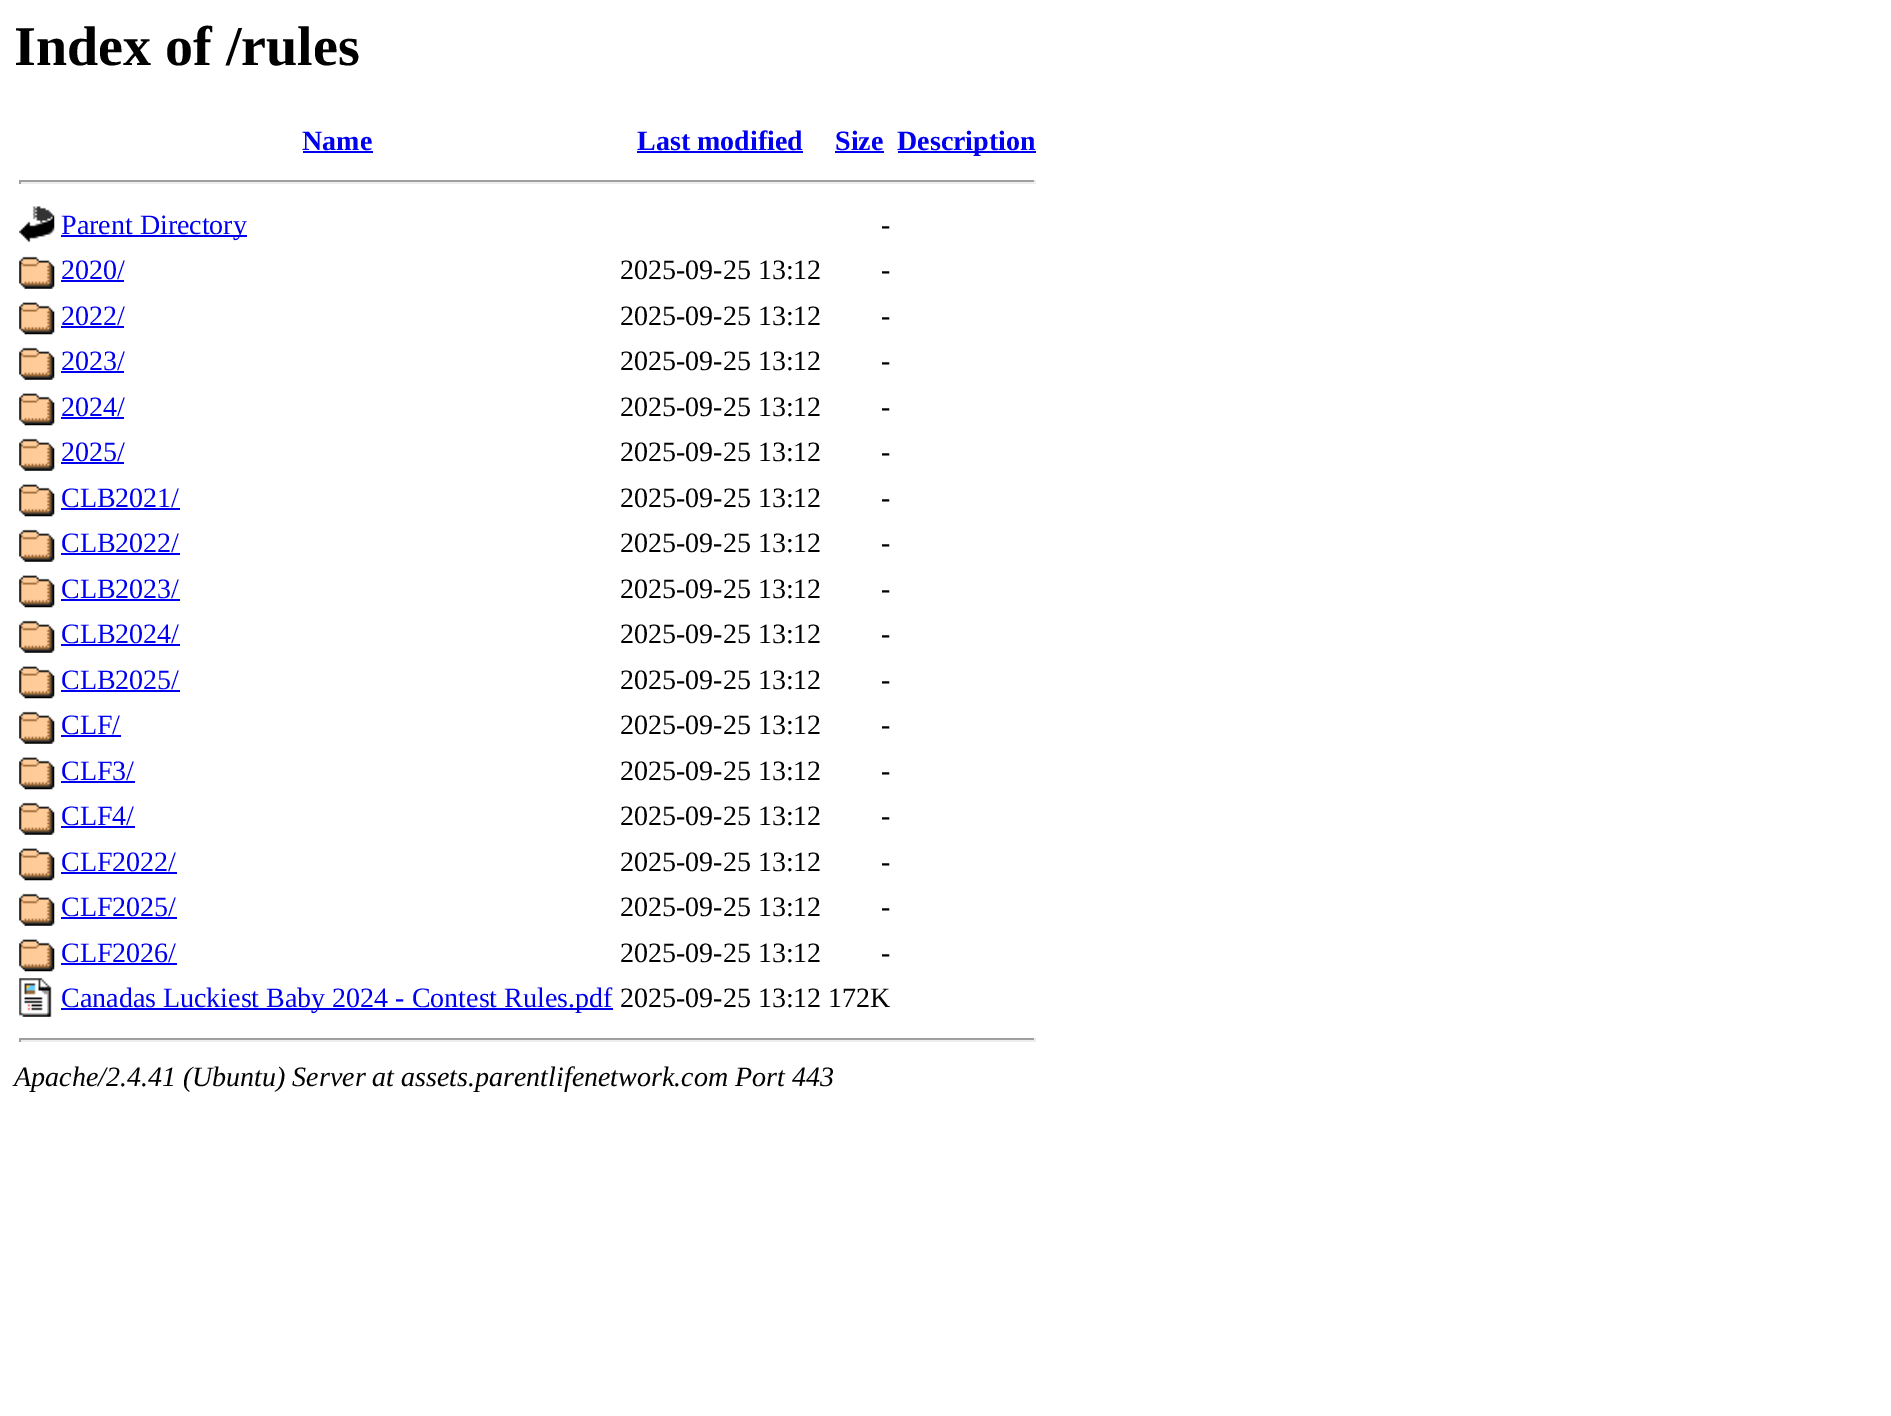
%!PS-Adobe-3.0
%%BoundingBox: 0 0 1891 1416
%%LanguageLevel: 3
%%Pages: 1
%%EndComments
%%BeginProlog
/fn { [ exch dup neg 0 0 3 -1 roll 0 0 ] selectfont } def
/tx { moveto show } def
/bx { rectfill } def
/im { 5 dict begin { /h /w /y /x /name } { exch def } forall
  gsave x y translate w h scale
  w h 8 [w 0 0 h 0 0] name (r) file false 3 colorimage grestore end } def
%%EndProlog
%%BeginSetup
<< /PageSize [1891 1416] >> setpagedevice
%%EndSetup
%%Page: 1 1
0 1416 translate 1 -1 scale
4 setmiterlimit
1 setgray
0 0 1891 1416 bx
/LiberationSerif-Bold 56 fn
0 setgray
(Index of /rules) 14 65 tx
/LiberationSerif-Bold 28 fn
0 0 0.933 setrgbcolor
(Name) 302 150 tx
303 151 70 2 bx
(Last modified) 637 150 tx
637 151 166 2 bx
(Size) 835 150 tx
835 151 49 2 bx
898 151 138 2 bx
(Description) 897 150 tx
0.624 setgray
19 180 1017 2 bx
0.933 setgray
1034 180 2 4 bx
19 182 1017 2 bx
0.624 setgray
19 180 2 4 bx
(image0.raw) 19 206 36 36 im
0 0 0.933 setrgbcolor
61 235 186 2 bx
/LiberationSerif-Regular 28 fn
(Parent Directory) 61 234 tx
0 setgray
(-) 881 234 tx
(image1.raw) 19 256 36 33 im
0 0 0.933 setrgbcolor
(2020/) 61 279 tx
61 280 63 2 bx
0 setgray
(2025-09-25 13:12) 620 279 tx
(-) 881 279 tx
(image2.raw) 19 302 36 33 im
0 0 0.933 setrgbcolor
(2022/) 61 325 tx
61 326 63 2 bx
0 setgray
(2025-09-25 13:12) 620 325 tx
(-) 881 325 tx
(image1.raw) 19 347 36 33 im
0 0 0.933 setrgbcolor
(2023/) 61 370 tx
61 371 63 2 bx
0 setgray
(2025-09-25 13:12) 620 370 tx
(-) 881 370 tx
(image2.raw) 19 393 36 33 im
0 0 0.933 setrgbcolor
(2024/) 61 416 tx
61 417 63 2 bx
0 setgray
(2025-09-25 13:12) 620 416 tx
(-) 881 416 tx
(image1.raw) 19 438 36 33 im
0 0 0.933 setrgbcolor
(2025/) 61 461 tx
61 462 63 2 bx
0 setgray
(2025-09-25 13:12) 620 461 tx
(-) 881 461 tx
(image2.raw) 19 484 36 33 im
0 0 0.933 setrgbcolor
(CLB2021/) 61 507 tx
61 508 119 2 bx
0 setgray
(2025-09-25 13:12) 620 507 tx
(-) 881 507 tx
(image1.raw) 19 529 36 33 im
0 0 0.933 setrgbcolor
(CLB2022/) 61 552 tx
61 553 119 2 bx
0 setgray
(2025-09-25 13:12) 620 552 tx
(-) 881 552 tx
(image2.raw) 19 575 36 33 im
0 0 0.933 setrgbcolor
(CLB2023/) 61 598 tx
61 599 119 2 bx
0 setgray
(2025-09-25 13:12) 620 598 tx
(-) 881 598 tx
(image1.raw) 19 620 36 33 im
0 0 0.933 setrgbcolor
(CLB2024/) 61 643 tx
61 644 119 2 bx
0 setgray
(2025-09-25 13:12) 620 643 tx
(-) 881 643 tx
(image2.raw) 19 666 36 33 im
0 0 0.933 setrgbcolor
(CLB2025/) 61 689 tx
61 690 119 2 bx
0 setgray
(2025-09-25 13:12) 620 689 tx
(-) 881 689 tx
(image1.raw) 19 711 36 33 im
0 0 0.933 setrgbcolor
(CLF/) 61 734 tx
61 735 60 2 bx
0 setgray
(2025-09-25 13:12) 620 734 tx
(-) 881 734 tx
(image2.raw) 19 757 36 33 im
0 0 0.933 setrgbcolor
(CLF3/) 61 780 tx
61 781 74 2 bx
0 setgray
(2025-09-25 13:12) 620 780 tx
(-) 881 780 tx
(image1.raw) 19 802 36 33 im
0 0 0.933 setrgbcolor
(CLF4/) 61 825 tx
61 826 74 2 bx
0 setgray
(2025-09-25 13:12) 620 825 tx
(-) 881 825 tx
(image2.raw) 19 848 36 33 im
0 0 0.933 setrgbcolor
(CLF2022/) 61 871 tx
61 872 116 2 bx
0 setgray
(2025-09-25 13:12) 620 871 tx
(-) 881 871 tx
(image1.raw) 19 893 36 33 im
0 0 0.933 setrgbcolor
(CLF2025/) 61 916 tx
61 917 116 2 bx
0 setgray
(2025-09-25 13:12) 620 916 tx
(-) 881 916 tx
(image2.raw) 19 939 36 33 im
0 0 0.933 setrgbcolor
(CLF2026/) 61 962 tx
61 963 116 2 bx
0 setgray
(2025-09-25 13:12) 620 962 tx
(-) 881 962 tx
(image3.raw) 19 978 33 39 im
0 0 0.933 setrgbcolor
61 1008 552 2 bx
(Canadas Luckiest Baby 2024 - Contest Rules.pdf) 61 1007 tx
0 setgray
(2025-09-25 13:12 172K) 620 1007 tx
0.624 setgray
19 1038 1017 2 bx
0.933 setgray
1034 1038 2 4 bx
19 1040 1017 2 bx
0.624 setgray
19 1038 2 4 bx
/LiberationSerif-Italic 28 fn
0 setgray
(Apache/2.4.41 \(Ubuntu\) Server at assets.parentlifenetwork.com Port 443) 14 1086 tx
showpage
%%EOF
